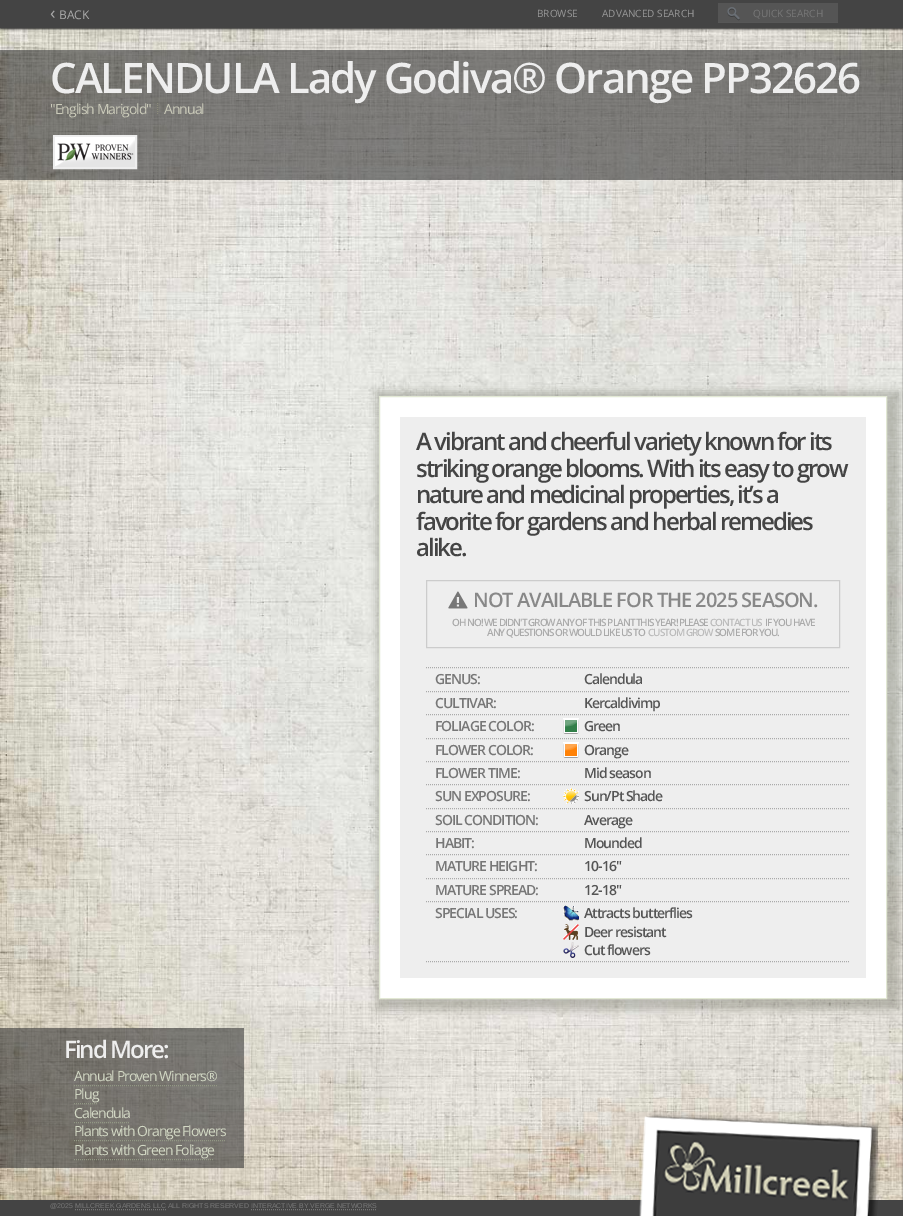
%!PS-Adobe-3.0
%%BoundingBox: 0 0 903 1216
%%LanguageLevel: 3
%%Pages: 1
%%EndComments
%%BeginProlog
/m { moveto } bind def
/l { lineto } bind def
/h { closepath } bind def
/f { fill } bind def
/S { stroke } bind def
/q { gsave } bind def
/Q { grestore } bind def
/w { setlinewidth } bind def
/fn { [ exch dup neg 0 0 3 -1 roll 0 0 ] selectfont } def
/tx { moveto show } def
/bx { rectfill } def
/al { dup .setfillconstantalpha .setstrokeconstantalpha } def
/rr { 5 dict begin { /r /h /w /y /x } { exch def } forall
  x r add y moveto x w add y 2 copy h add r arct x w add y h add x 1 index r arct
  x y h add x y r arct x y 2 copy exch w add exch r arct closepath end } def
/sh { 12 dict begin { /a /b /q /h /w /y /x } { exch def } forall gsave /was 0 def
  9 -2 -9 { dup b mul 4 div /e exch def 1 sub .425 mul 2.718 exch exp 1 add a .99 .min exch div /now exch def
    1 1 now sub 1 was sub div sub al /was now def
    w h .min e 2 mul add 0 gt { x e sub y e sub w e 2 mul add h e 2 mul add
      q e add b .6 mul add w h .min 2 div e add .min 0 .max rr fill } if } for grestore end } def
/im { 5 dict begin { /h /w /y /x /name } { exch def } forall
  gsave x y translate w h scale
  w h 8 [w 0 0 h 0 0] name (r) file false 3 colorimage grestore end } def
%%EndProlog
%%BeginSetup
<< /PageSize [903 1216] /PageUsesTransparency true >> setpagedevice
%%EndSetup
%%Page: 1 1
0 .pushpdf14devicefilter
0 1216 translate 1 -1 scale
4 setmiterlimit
1 setgray
0 0 903 1216 bx
(image1.raw) 0 28 903 1172 im
0.133 setgray
0 1 903 28 0 1 1 sh
0.267 setgray
0 0 903 28 bx
/OpenSans-Regular 18 fn
0.667 setgray
(‹) 50 19 tx
/OpenSans-Regular 12 fn
(BACK) 59 19 tx
/OpenSans-Regular 10 fn
0.6 setgray
(BROWSE) 537 17 tx
(ADVANCED SEARCH) 602 17 tx
0.341 setgray
718 22 120 1 bx
0.333 setgray
718 3 120 19 bx
(image0.raw) 727 7 13 14 im
0.467 setgray
(QUICK SEARCH) 753 17 tx
0.6 al
0.216 setgray
0 50 903 130 bx
1 al
0.541 0.541 0.475 setrgbcolor
[1 1] 0 setdash
157.5 103 m 157.5 115 l S
/OpenSans-SemiBold 42 fn
0.933 setgray
50 93 m -2 0 (CALENDULA Lady Godiva® Orange PP32626) ashow
/OpenSans-Regular 14 fn
0.792 0.792 0.725 setrgbcolor
50 114 m -1 0 ("English Marigold") ashow
164 114 m -1 0 (Annual) ashow
0.933 setgray
2 w
[] 0 setdash
54 136 82 32 rectstroke
(image2.raw) 55 137 80 30 im
0.306 0.314 0.255 setrgbcolor
376 391 524 619 0 4 0.3 sh
1 setgray
379.5 396.5 m 886.5 396.5 l 886.5 998.5 l 379.5 998.5 l h q f Q
0.886 0.91 0.831 setrgbcolor
1 w
S
0.933 setgray
400 417 466 561 bx
/OpenSans-SemiBold 24 fn
0.267 setgray
416 450 m -2 0 (A vibrant and cheerful variety known for its) ashow
416 477 m -2 0 (striking orange blooms. With its easy to grow) ashow
416 503 m -2 0 (nature and medicinal properties, it’s a) ashow
416 530 m -2 0 (favorite for gardens and herbal remedies) ashow
416 556 m -2 0 (alike.) ashow
0.8 setgray
426.5 580.5 413 67 rectstroke
(image3.raw) 448 591 20 18 im
/OpenSans-SemiBold 20 fn
0.533 setgray
473 607 m -1 0 (NOT AVAILABLE FOR THE 2025 SEASON.) ashow
/OpenSans-SemiBold 10 fn
0.667 setgray
452 626 m -1 0 (OH NO! WE DIDN'T GROW ANY OF THIS PLANT THIS YEAR! PLEASE) ashow
0.733 setgray
710 626 m -1 0 (CONTACT US) ashow
0.667 setgray
765 626 m -1 0 (IF YOU HAVE) ashow
487 636 m -1 0 (ANY QUESTIONS OR WOULD LIKE US TO) ashow
0.733 setgray
648 636 m -1 0 (CUSTOM GROW) ashow
0.667 setgray
715 636 m -1 0 (SOME FOR YOU.) ashow
[1 1] 0 setdash
426 667.5 m 850 667.5 l S
426 691.5 m 850 691.5 l S
/OpenSans-SemiBold 14 fn
0.467 setgray
435 684 m -1 0 (GENUS:) ashow
0.333 setgray
584 684 m -1 0 (Calendula) ashow
0.667 setgray
426 714.5 m 850 714.5 l S
0.467 setgray
435 708 m -1 0 (CULTIVAR:) ashow
0.333 setgray
584 708 m -1 0 (Kercaldivimp) ashow
0.667 setgray
426 738.5 m 850 738.5 l S
0.467 setgray
435 731 m -1 0 (FOLIAGE COLOR:) ashow
(image4.raw) 563 718 16 16 im
0.333 setgray
584 731 m -1 0 (Green) ashow
0.667 setgray
426 761.5 m 850 761.5 l S
0.467 setgray
435 755 m -1 0 (FLOWER COLOR:) ashow
(image5.raw) 563 742 16 16 im
0.333 setgray
584 755 m -1 0 (Orange) ashow
0.667 setgray
426 784.5 m 850 784.5 l S
0.467 setgray
435 778 m -1 0 (FLOWER TIME:) ashow
0.333 setgray
584 778 m -1 0 (Mid season) ashow
0.667 setgray
426 808.5 m 850 808.5 l S
0.467 setgray
435 801 m -1 0 (SUN EXPOSURE:) ashow
(image6.raw) 563 788 16 16 im
0.333 setgray
584 801 m -1 0 (Sun/Pt Shade) ashow
0.667 setgray
426 831.5 m 850 831.5 l S
0.467 setgray
435 825 m -1 0 (SOIL CONDITION:) ashow
0.333 setgray
584 825 m -1 0 (Average) ashow
0.667 setgray
426 854.5 m 850 854.5 l S
0.467 setgray
435 848 m -1 0 (HABIT:) ashow
0.333 setgray
584 848 m -1 0 (Mounded) ashow
0.667 setgray
426 878.5 m 850 878.5 l S
0.467 setgray
435 871 m -1 0 (MATURE HEIGHT:) ashow
0.333 setgray
584 871 m -1 0 (10-16") ashow
0.667 setgray
426 901.5 m 850 901.5 l S
0.467 setgray
435 895 m -1 0 (MATURE SPREAD:) ashow
0.333 setgray
584 895 m -1 0 (12-18") ashow
0.667 setgray
426 961.5 m 850 961.5 l S
0.467 setgray
435 918 m -1 0 (SPECIAL USES:) ashow
(image7.raw) 563 905 16 16 im
0.333 setgray
584 918 m -1 0 (Attracts butterflies) ashow
(image8.raw) 563 924 16 16 im
584 937 m -1 0 (Deer resistant) ashow
(image9.raw) 563 942 16 16 im
584 955 m -1 0 (Cut flowers) ashow
0.6 al
0.216 setgray
0 1028 244 140 bx
/OpenSans-SemiBold 24 fn
1 al
0.933 setgray
64 1058 m -2 0 (Find More:) ashow
/OpenSans-Regular 14 fn
0.824 0.847 0.769 setrgbcolor
74 1081 m -1 0 (Annual Proven Winners®) ashow
0.573 0.596 0.518 setrgbcolor
74 1085.5 m 217 1085.5 l S
0.824 0.847 0.769 setrgbcolor
74 1099 m -1 0 (Plug) ashow
0.573 0.596 0.518 setrgbcolor
74 1103.5 m 98 1103.5 l S
0.824 0.847 0.769 setrgbcolor
74 1118 m -1 0 (Calendula) ashow
0.573 0.596 0.518 setrgbcolor
74 1122.5 m 130 1122.5 l S
0.824 0.847 0.769 setrgbcolor
74 1136 m -1 0 (Plants with Orange Flowers) ashow
0.573 0.596 0.518 setrgbcolor
74 1140.5 m 226 1140.5 l S
0.824 0.847 0.769 setrgbcolor
74 1155 m -1 0 (Plants with Green Foliage) ashow
0.573 0.596 0.518 setrgbcolor
74 1159.5 m 214 1159.5 l S
0.267 setgray
0 1200 903 16 bx
(image10.raw) 639 1112 239 104 im
/LiberationSans-Regular 7 fn
0.467 setgray
(@2025 MILLCREEK GARDENS LLC ALL RIGHTS RESERVED INTERACTIVE BY VERGE NETWORKS) 50 1208 tx
75 1209.5 m 166 1209.5 l S
251 1209.5 m 377 1209.5 l S
.poppdf14devicefilter showpage
%%EOF
